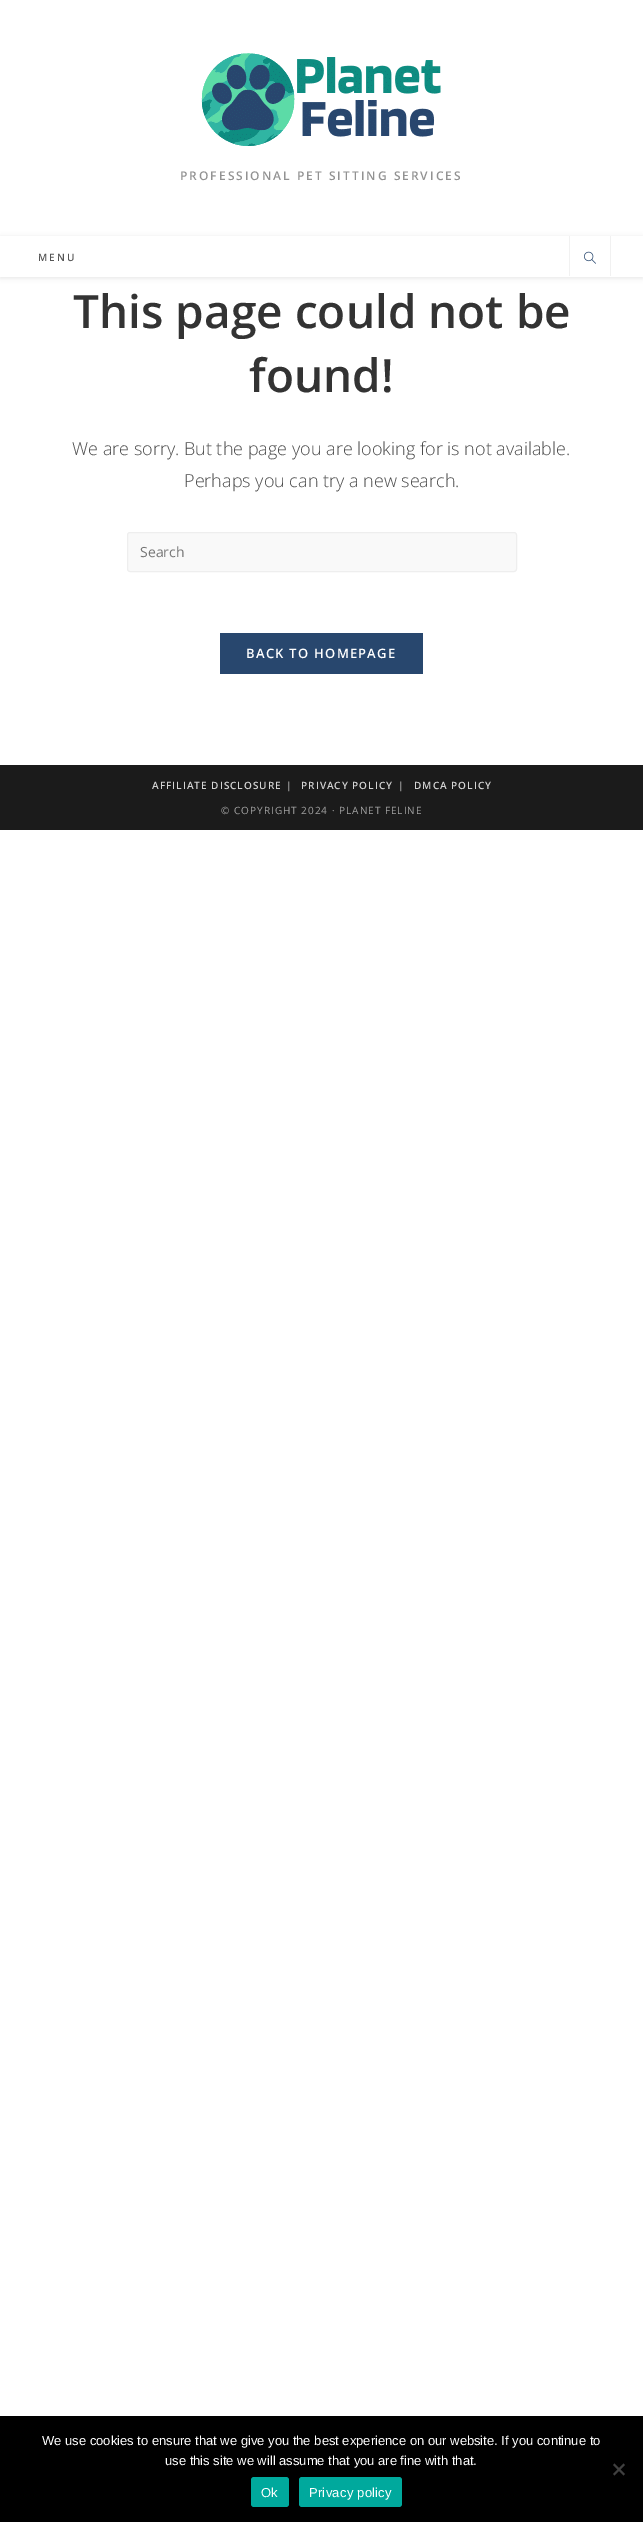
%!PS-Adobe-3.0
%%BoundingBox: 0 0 643 2522
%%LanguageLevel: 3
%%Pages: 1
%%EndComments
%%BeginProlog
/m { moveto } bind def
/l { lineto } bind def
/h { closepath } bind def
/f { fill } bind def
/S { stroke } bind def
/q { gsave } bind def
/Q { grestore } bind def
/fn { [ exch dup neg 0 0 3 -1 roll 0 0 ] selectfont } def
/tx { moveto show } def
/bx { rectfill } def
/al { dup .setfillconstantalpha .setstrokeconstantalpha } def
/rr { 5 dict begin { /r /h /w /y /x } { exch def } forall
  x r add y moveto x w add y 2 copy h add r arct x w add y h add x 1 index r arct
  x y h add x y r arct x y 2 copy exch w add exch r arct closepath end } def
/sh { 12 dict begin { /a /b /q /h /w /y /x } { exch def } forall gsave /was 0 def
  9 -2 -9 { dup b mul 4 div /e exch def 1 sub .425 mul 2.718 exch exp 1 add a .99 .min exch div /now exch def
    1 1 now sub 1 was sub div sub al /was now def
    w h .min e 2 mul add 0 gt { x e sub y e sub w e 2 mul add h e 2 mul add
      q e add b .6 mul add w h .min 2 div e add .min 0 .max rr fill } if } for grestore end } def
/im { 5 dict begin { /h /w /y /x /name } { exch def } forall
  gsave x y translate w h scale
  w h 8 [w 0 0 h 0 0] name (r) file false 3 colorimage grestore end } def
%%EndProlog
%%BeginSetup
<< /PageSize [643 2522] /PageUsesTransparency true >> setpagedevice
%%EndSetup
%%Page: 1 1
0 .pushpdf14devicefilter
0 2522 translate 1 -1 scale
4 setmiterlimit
1 setgray
0 0 643 2522 bx
(image0.raw) 201 53 241 93 im
/OpenSans-SemiBold 12 fn
0.573 setgray
180 180 m 2 0 (PROFESSIONAL PET SITTING SERVICES) ashow
q
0 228 m 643 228 l 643 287 l 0 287 l h 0 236 m 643 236 l 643 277 l 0 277 l h eoclip newpath
0 setgray
0 237 643 41 0 2.5 0.1 sh
Q
/OpenSans-SemiBold 10 fn
0.333 setgray
38 261 m 2 0 (MENU) ashow
0.945 setgray
610 236 1 40 bx
569 236 1 40 bx
(image1.raw) 584 251 12 13 im
/OpenSans-SemiBold 46 fn
0.2 setgray
(This page could not be) 73 328 tx
(found!) 249 392 tx
/OpenSans-Light 18 fn
0.298 setgray
(We are sorry. But the page you are looking for is not available.) 72 455 tx
(Perhaps you can try a new search.) 184 487 tx
0.976 setgray
127.5 532.5 389 39 2.5 rr q f Q
0.933 setgray
S
/OpenSans-Regular 14 fn
0.459 setgray
(Search) 140 557 tx
0.157 0.278 0.431 setrgbcolor
220 633 203 41 bx
/OpenSans-SemiBold 13 fn
1 setgray
246 658 m 1.25 0 (BACK TO HOMEPAGE) ashow
0.106 setgray
0 765 643 65 bx
/OpenSans-SemiBold 10 fn
0.827 setgray
152 789 m 1 0 (AFFILIATE DISCLOSURE) ashow
0.639 setgray
286 789 m 1 0 (|) ashow
0.827 setgray
301 789 m 1 0 (PRIVACY POLICY) ashow
0.639 setgray
398 789 m 1 0 (|) ashow
0.827 setgray
414 789 m 1 0 (DMCA POLICY) ashow
/OpenSans-Regular 10 fn
0.639 setgray
221 814 m 1 0 (© COPYRIGHT 2024 · PLANET FELINE) ashow
0 setgray
0 2416 643 106 bx
/LiberationSans-Regular 13 fn
1 setgray
(We use cookies to ensure that we give you the best experience on our website. If you continue to) 42 2445 tx
(use this site we will assume that you are fine with that.) 165 2465 tx
0.251 setgray
623.5 2463.5 m 625 2465 l 614.5 2475.5 l 613 2474 l h f
613 2465 m 614.5 2463.5 l 625 2474 l 623.5 2475.5 l h f
0 0.663 0.616 setrgbcolor
251 2477 38 30 3 rr f
1 setgray
261 2497 m 0.25 0 (Ok) ashow
0 0.663 0.616 setrgbcolor
299 2477 103 30 3 rr f
1 setgray
309 2497 m 0.25 0 (Privacy policy) ashow
.poppdf14devicefilter showpage
%%EOF
